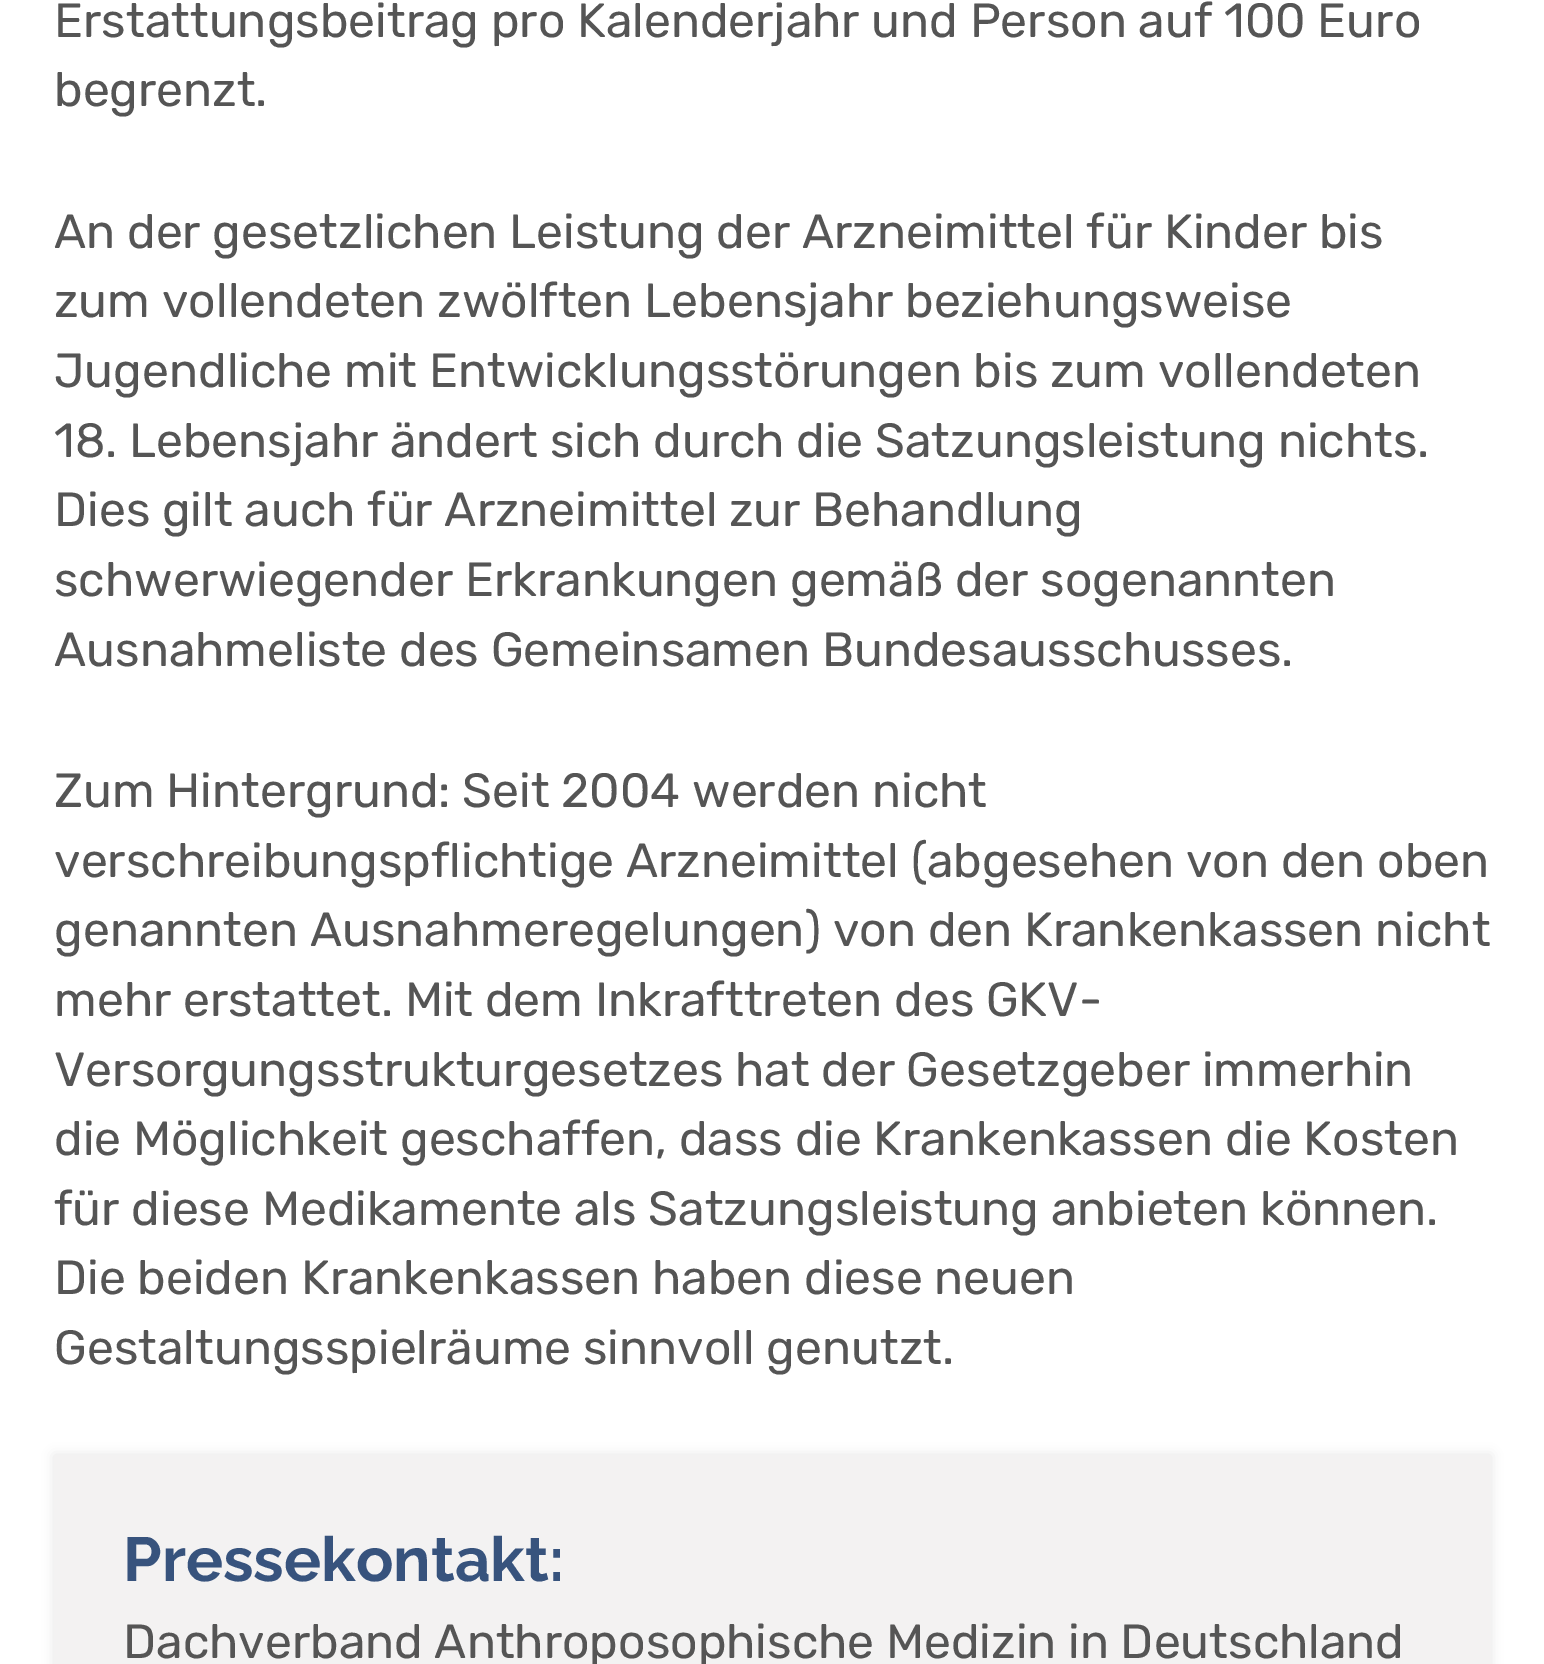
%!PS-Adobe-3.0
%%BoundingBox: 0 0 1544 1664
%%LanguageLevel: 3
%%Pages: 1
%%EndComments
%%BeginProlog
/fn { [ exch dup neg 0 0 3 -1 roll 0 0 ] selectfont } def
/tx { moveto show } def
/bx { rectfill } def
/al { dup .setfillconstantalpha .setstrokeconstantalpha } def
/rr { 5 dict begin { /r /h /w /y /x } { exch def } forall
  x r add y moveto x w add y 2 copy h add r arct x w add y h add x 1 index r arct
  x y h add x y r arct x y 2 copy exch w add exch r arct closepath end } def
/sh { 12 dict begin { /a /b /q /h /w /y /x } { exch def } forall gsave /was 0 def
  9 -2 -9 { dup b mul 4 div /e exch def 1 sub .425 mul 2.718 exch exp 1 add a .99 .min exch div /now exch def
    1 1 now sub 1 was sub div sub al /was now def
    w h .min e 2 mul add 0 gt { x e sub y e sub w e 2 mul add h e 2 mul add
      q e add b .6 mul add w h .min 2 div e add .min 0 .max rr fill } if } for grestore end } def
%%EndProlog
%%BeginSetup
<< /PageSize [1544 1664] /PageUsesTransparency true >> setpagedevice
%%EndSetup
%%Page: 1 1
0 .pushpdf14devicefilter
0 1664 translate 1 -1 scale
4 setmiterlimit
1 setgray
0 0 1544 1664 bx
/Rubik-Regular 48 fn
0.333 setgray
(Erstattungsbeitrag pro Kalenderjahr und Person auf 100 Euro) 54 37 tx
(begrenzt.) 54 106 tx
(An der gesetzlichen Leistung der Arzneimittel für Kinder bis) 54 248 tx
(zum vollendeten zwölften Lebensjahr beziehungsweise) 54 317 tx
(Jugendliche mit Entwicklungsstörungen bis zum vollendeten) 54 387 tx
(18. Lebensjahr ändert sich durch die Satzungsleistung nichts.) 54 457 tx
(Dies gilt auch für Arzneimittel zur Behandlung) 54 526 tx
(schwerwiegender Erkrankungen gemäß der sogenannten) 54 596 tx
(Ausnahmeliste des Gemeinsamen Bundesausschusses.) 54 666 tx
(Zum Hintergrund: Seit 2004 werden nicht) 54 807 tx
(verschreibungspflichtige Arzneimittel \(abgesehen von den oben) 54 877 tx
(genannten Ausnahmeregelungen\) von den Krankenkassen nicht) 54 946 tx
(mehr erstattet. Mit dem Inkrafttreten des GKV-) 54 1016 tx
(Versorgungsstrukturgesetzes hat der Gesetzgeber immerhin) 54 1086 tx
(die Möglichkeit geschaffen, dass die Krankenkassen die Kosten) 54 1155 tx
(für diese Medikamente als Satzungsleistung anbieten können.) 54 1225 tx
(Die beiden Krankenkassen haben diese neuen) 54 1294 tx
(Gestaltungsspielräume sinnvoll genutzt.) 54 1364 tx
0.902 setgray
54 1455 1437 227 0 6 1 sh
0.953 0.949 0.949 setrgbcolor
54 1455 1437 209 bx
/Raleway-Bold 62 fn
0.216 0.325 0.49 setrgbcolor
(Pressekontakt:) 123 1581 tx
/Rubik-Regular 48 fn
0.333 setgray
(Dachverband Anthroposophische Medizin in Deutschland) 123 1658 tx
.poppdf14devicefilter showpage
%%EOF
